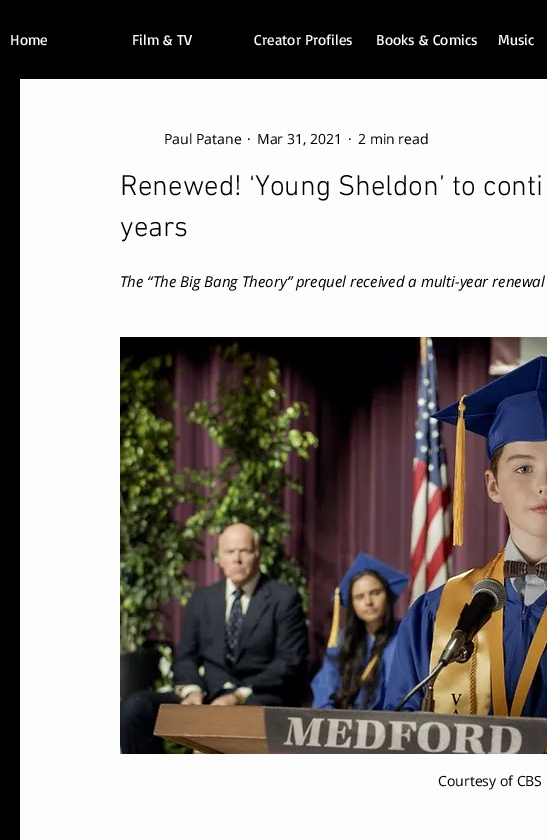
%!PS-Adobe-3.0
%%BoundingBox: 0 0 547 840
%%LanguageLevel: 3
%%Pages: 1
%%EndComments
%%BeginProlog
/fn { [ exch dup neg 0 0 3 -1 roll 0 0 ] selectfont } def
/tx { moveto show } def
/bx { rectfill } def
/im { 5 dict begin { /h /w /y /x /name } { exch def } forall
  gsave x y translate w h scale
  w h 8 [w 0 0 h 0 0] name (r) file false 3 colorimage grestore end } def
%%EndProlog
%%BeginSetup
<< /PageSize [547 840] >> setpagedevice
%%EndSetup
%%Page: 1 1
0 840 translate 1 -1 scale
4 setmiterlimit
0 setgray
0 0 547 840 bx
/Basic-Regular 15 fn
0.992 setgray
(Home) 10 45 tx
(Film & TV) 132 45 tx
(Creator Profiles) 254 45 tx
(Books & Comics) 376 45 tx
(Music) 498 45 tx
20 79 527 761 bx
/OpenSans-Regular 14 fn
0 setgray
(Paul Patane) 164 144 tx
(·) 247 144 tx
(Mar 31, 2021) 257 144 tx
(·) 348 144 tx
(2 min read) 358 144 tx
/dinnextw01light-Light 29 fn
(Renewed! ‘Young Sheldon’ to conti) 120 195 tx
(years) 120 236 tx
/OpenSans-Italic 15 fn
(The “The Big Bang Theory” prequel received a multi-year renewal) 120 287 tx
(image0.raw) 120 337 427 417 im
/OpenSans-Regular 14 fn
(Courtesy of CBS) 438 786 tx
showpage
%%EOF
